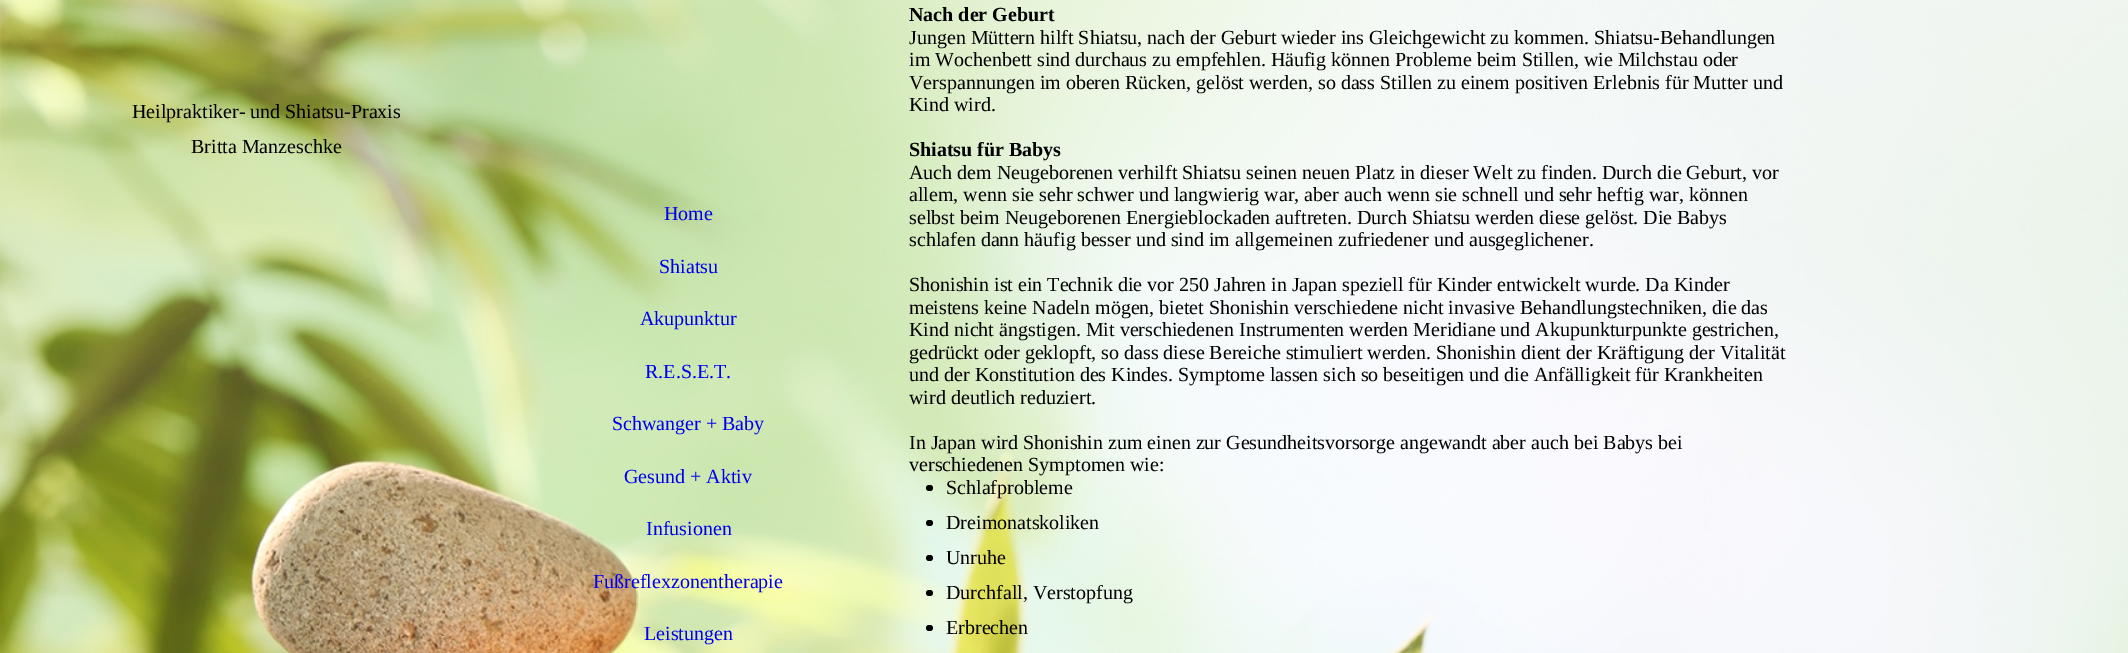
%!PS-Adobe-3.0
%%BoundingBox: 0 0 2128 653
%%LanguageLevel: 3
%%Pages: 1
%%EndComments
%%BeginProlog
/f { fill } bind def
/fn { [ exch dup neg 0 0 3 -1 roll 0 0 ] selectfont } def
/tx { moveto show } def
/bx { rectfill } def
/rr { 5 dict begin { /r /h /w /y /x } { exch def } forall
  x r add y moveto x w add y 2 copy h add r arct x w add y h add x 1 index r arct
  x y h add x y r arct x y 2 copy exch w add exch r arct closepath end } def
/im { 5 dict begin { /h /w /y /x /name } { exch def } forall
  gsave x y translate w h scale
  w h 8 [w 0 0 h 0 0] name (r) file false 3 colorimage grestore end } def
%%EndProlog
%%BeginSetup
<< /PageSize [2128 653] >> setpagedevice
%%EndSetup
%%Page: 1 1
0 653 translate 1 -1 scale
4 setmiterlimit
1 setgray
0 0 2128 653 bx
(image0.raw) 0 0 2128 653 im
/LiberationSerif-Regular 20 fn
0 setgray
(Heilpraktiker- und Shiatsu-Praxis) 132 118 tx
(Britta Manzeschke) 191 153 tx
0 0 0.933 setrgbcolor
(Home) 664 220 tx
(Shiatsu) 659 273 tx
(Akupunktur) 640 325 tx
(R.E.S.E.T.) 645 378 tx
(Schwanger + Baby) 612 430 tx
(Gesund + Aktiv) 624 483 tx
(Infusionen) 646 535 tx
(Fußreflexzonentherapie) 593 588 tx
(Leistungen) 644 640 tx
/LiberationSerif-Bold 20 fn
0 setgray
(Nach der Geburt) 909 21 tx
/LiberationSerif-Regular 20 fn
(Jungen Müttern hilft Shiatsu, nach der Geburt wieder ins Gleichgewicht zu kommen. Shiatsu-Behandlungen) 909 44 tx
(im Wochenbett sind durchaus zu empfehlen. Häufig können Probleme beim Stillen, wie Milchstau oder) 909 66 tx
(Verspannungen im oberen Rücken, gelöst werden, so dass Stillen zu einem positiven Erlebnis für Mutter und) 909 89 tx
(Kind wird.) 909 111 tx
/LiberationSerif-Bold 20 fn
(Shiatsu für Babys) 909 156 tx
/LiberationSerif-Regular 20 fn
(Auch dem Neugeborenen verhilft Shiatsu seinen neuen Platz in dieser Welt zu finden. Durch die Geburt, vor) 909 179 tx
(allem, wenn sie sehr schwer und langwierig war, aber auch wenn sie schnell und sehr heftig war, können) 909 201 tx
(selbst beim Neugeborenen Energieblockaden auftreten. Durch Shiatsu werden diese gelöst. Die Babys) 909 224 tx
(schlafen dann häufig besser und sind im allgemeinen zufriedener und ausgeglichener.) 909 246 tx
(Shonishin ist ein Technik die vor 250 Jahren in Japan speziell für Kinder entwickelt wurde. Da Kinder) 909 291 tx
(meistens keine Nadeln mögen, bietet Shonishin verschiedene nicht invasive Behandlungstechniken, die das) 909 314 tx
(Kind nicht ängstigen. Mit verschiedenen Instrumenten werden Meridiane und Akupunkturpunkte gestrichen,) 909 336 tx
(gedrückt oder geklopft, so dass diese Bereiche stimuliert werden. Shonishin dient der Kräftigung der Vitalität) 909 359 tx
(und der Konstitution des Kindes. Symptome lassen sich so beseitigen und die Anfälligkeit für Krankheiten) 909 381 tx
(wird deutlich reduziert.) 909 404 tx
(In Japan wird Shonishin zum einen zur Gesundheitsvorsorge angewandt aber auch bei Babys bei) 909 449 tx
(verschiedenen Symptomen wie:) 909 471 tx
926 485 7 6 3 rr f
(Schlafprobleme) 946 494 tx
926 520 7 6 3 rr f
(Dreimonatskoliken) 946 529 tx
926 555 7 6 3 rr f
(Unruhe) 946 564 tx
926 590 7 6 3 rr f
(Durchfall, Verstopfung) 946 599 tx
926 625 7 6 3 rr f
(Erbrechen) 946 634 tx
showpage
%%EOF
